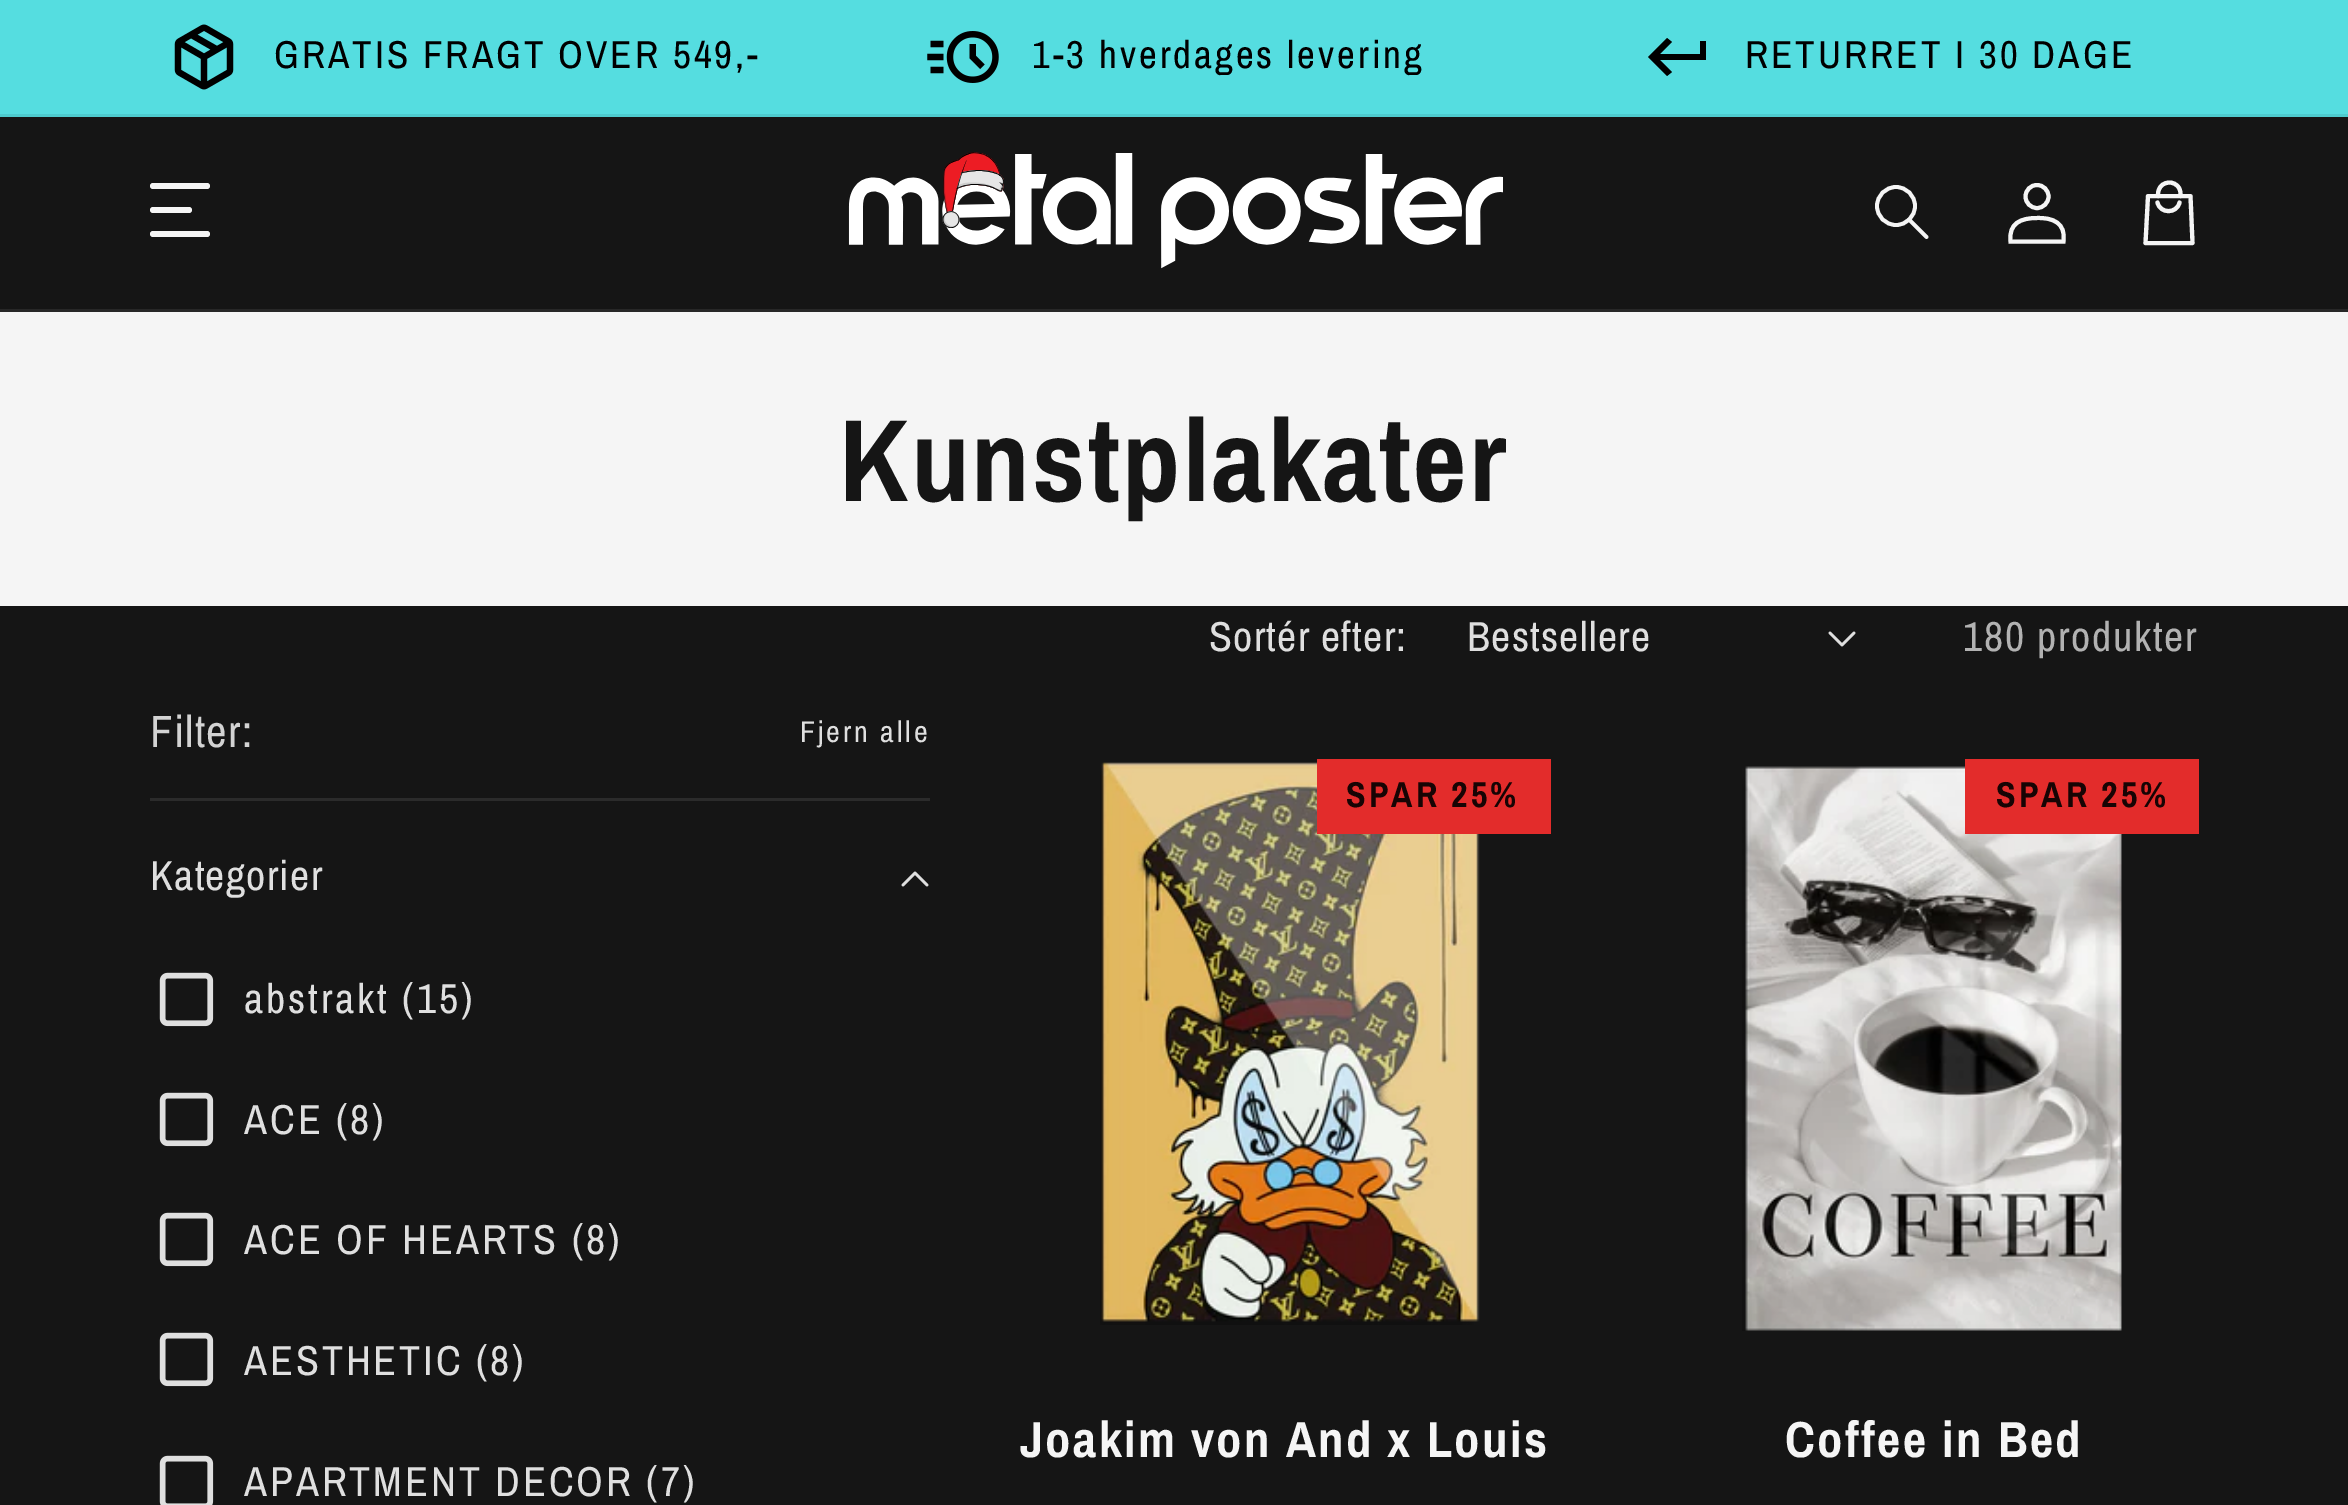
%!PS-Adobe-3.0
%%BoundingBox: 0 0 2348 1505
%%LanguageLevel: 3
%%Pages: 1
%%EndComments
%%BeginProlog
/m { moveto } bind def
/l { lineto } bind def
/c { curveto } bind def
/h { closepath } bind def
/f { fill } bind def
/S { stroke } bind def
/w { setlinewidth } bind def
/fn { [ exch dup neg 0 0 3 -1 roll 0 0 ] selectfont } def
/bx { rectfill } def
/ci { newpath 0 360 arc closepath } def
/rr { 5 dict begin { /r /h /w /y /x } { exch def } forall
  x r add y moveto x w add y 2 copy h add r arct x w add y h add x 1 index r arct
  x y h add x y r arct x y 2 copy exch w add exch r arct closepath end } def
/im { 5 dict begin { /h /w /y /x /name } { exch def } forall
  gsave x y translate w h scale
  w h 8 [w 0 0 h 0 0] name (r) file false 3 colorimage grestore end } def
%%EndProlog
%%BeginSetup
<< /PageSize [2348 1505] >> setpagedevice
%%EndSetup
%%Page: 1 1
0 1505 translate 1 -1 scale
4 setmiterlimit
0.082 setgray
0 0 2348 1505 bx
0.333 0.867 0.878 setrgbcolor
0 0 2348 114 bx
0.306 0.796 0.808 setrgbcolor
0 114 2348 3 bx
(image0.raw) 174 24 60 66 im
/ArchivoNarrow-Regular 39 fn
0 setgray
274 68 m 3 0 (GRATIS FRAGT OVER 549,-) ashow
(image1.raw) 927 31 72 52 im
1032 68 m 3 0 (1-3 hverdages levering) ashow
1667 76 m 1648 57 l 1667 38 l 1672 42 l 1660 54 l 1700 54 l 1700 41 l 1706 41 l 1706 60 l 1660 60 l 1672 72 l h f
1745 68 m 3 0 (RETURRET I 30 DAGE) ashow
0.153 setgray
0 309 2348 3 bx
0.961 setgray
150 183 60 6 3 rr f
150 207 42 6 3 rr f
150 231 60 6 3 rr f
(image2.raw) 848 152 655 117 im
3.8 w
1896 206 19 ci S
1 setlinecap
1 setlinejoin
1926.5 237 m 1909 219.5 l S
4 w
0 setlinecap
0 setlinejoin
2037 196.5 11.5 ci S
2010.5 241.5 m 2063.5 241.5 l 2066 223 2053 217.5 2037 218 c 2021 218 2008.5 223 2010.5 241.5 c h S
4.1 w
1 setlinecap
1 setlinejoin
2148 196 m 2190.5 196 l 2192.5 243 l 2145.5 243 l h S
2158 196 m 2158 193.5 2158 191.5 2159 189.5 c 2162 181 2174.5 180 2179 188 c 2180.5 190.5 2180.5 193 2180.5 196 c 2157.5 202.5 m 2160 214 2177 214 2179.5 202.5 c S
0 312 2348 294 bx
/ArchivoNarrow-Bold 117 fn
0.082 setgray
839 501 m 2.3 0 (Kunstplakater) ashow
/ArchivoNarrow-Regular 42 fn
0.875 setgray
1209 651 m 1.25 0 (Sortér efter:) ashow
1467 651 m 1.25 0 (Bestsellere) ashow
(image3.raw) 1828 631 28 16 im
0.698 setgray
1963 651 m 1.75 0 (180 produkter) ashow
/ArchivoNarrow-Regular 45 fn
0.827 setgray
150 747 m 1.25 0 (Filter:) ashow
/ArchivoNarrow-Regular 30 fn
0.875 setgray
800 742 m 2.9 0 (Fjern alle) ashow
0.169 setgray
150 798 780 3 bx
/ArchivoNarrow-Regular 42 fn
0.875 setgray
150 890 m 1.25 0 (Kategorier) ashow
(image4.raw) 901 871 28 16 im
(image5.raw) 159 972 55 55 im
244 1013 m 2.9 0 (abstrakt \(15\)) ashow
(image5.raw) 159 1092 55 55 im
244 1134 m 2.9 0 (ACE \(8\)) ashow
(image5.raw) 159 1212 55 55 im
244 1254 m 2.9 0 (ACE OF HEARTS \(8\)) ashow
(image5.raw) 159 1332 55 55 im
244 1375 m 2.9 0 (AESTHETIC \(8\)) ashow
(image6.raw) 159 1455 55 50 im
244 1496 m 2.9 0 (APARTMENT DECOR \(7\)) ashow
(image7.raw) 1100 762 380 563 im
0.89 0.173 0.169 setrgbcolor
1317 759 234 75 bx
/ArchivoNarrow-Bold 36 fn
0.09 0.016 0.016 setrgbcolor
1346 807 m 3 0 (SPAR 25%) ashow
/ArchivoNarrow-Bold 50.75 fn
0.961 setgray
1020 1457 m 2.3 0 (Joakim von And x Louis) ashow
(image8.raw) 1742 766 380 565 im
0.89 0.173 0.169 setrgbcolor
1965 759 234 75 bx
/ArchivoNarrow-Bold 36 fn
0.09 0.016 0.016 setrgbcolor
1996 807 m 3 0 (SPAR 25%) ashow
/ArchivoNarrow-Bold 50.75 fn
0.961 setgray
1785 1457 m 2.3 0 (Coffee in Bed) ashow
showpage
%%EOF
